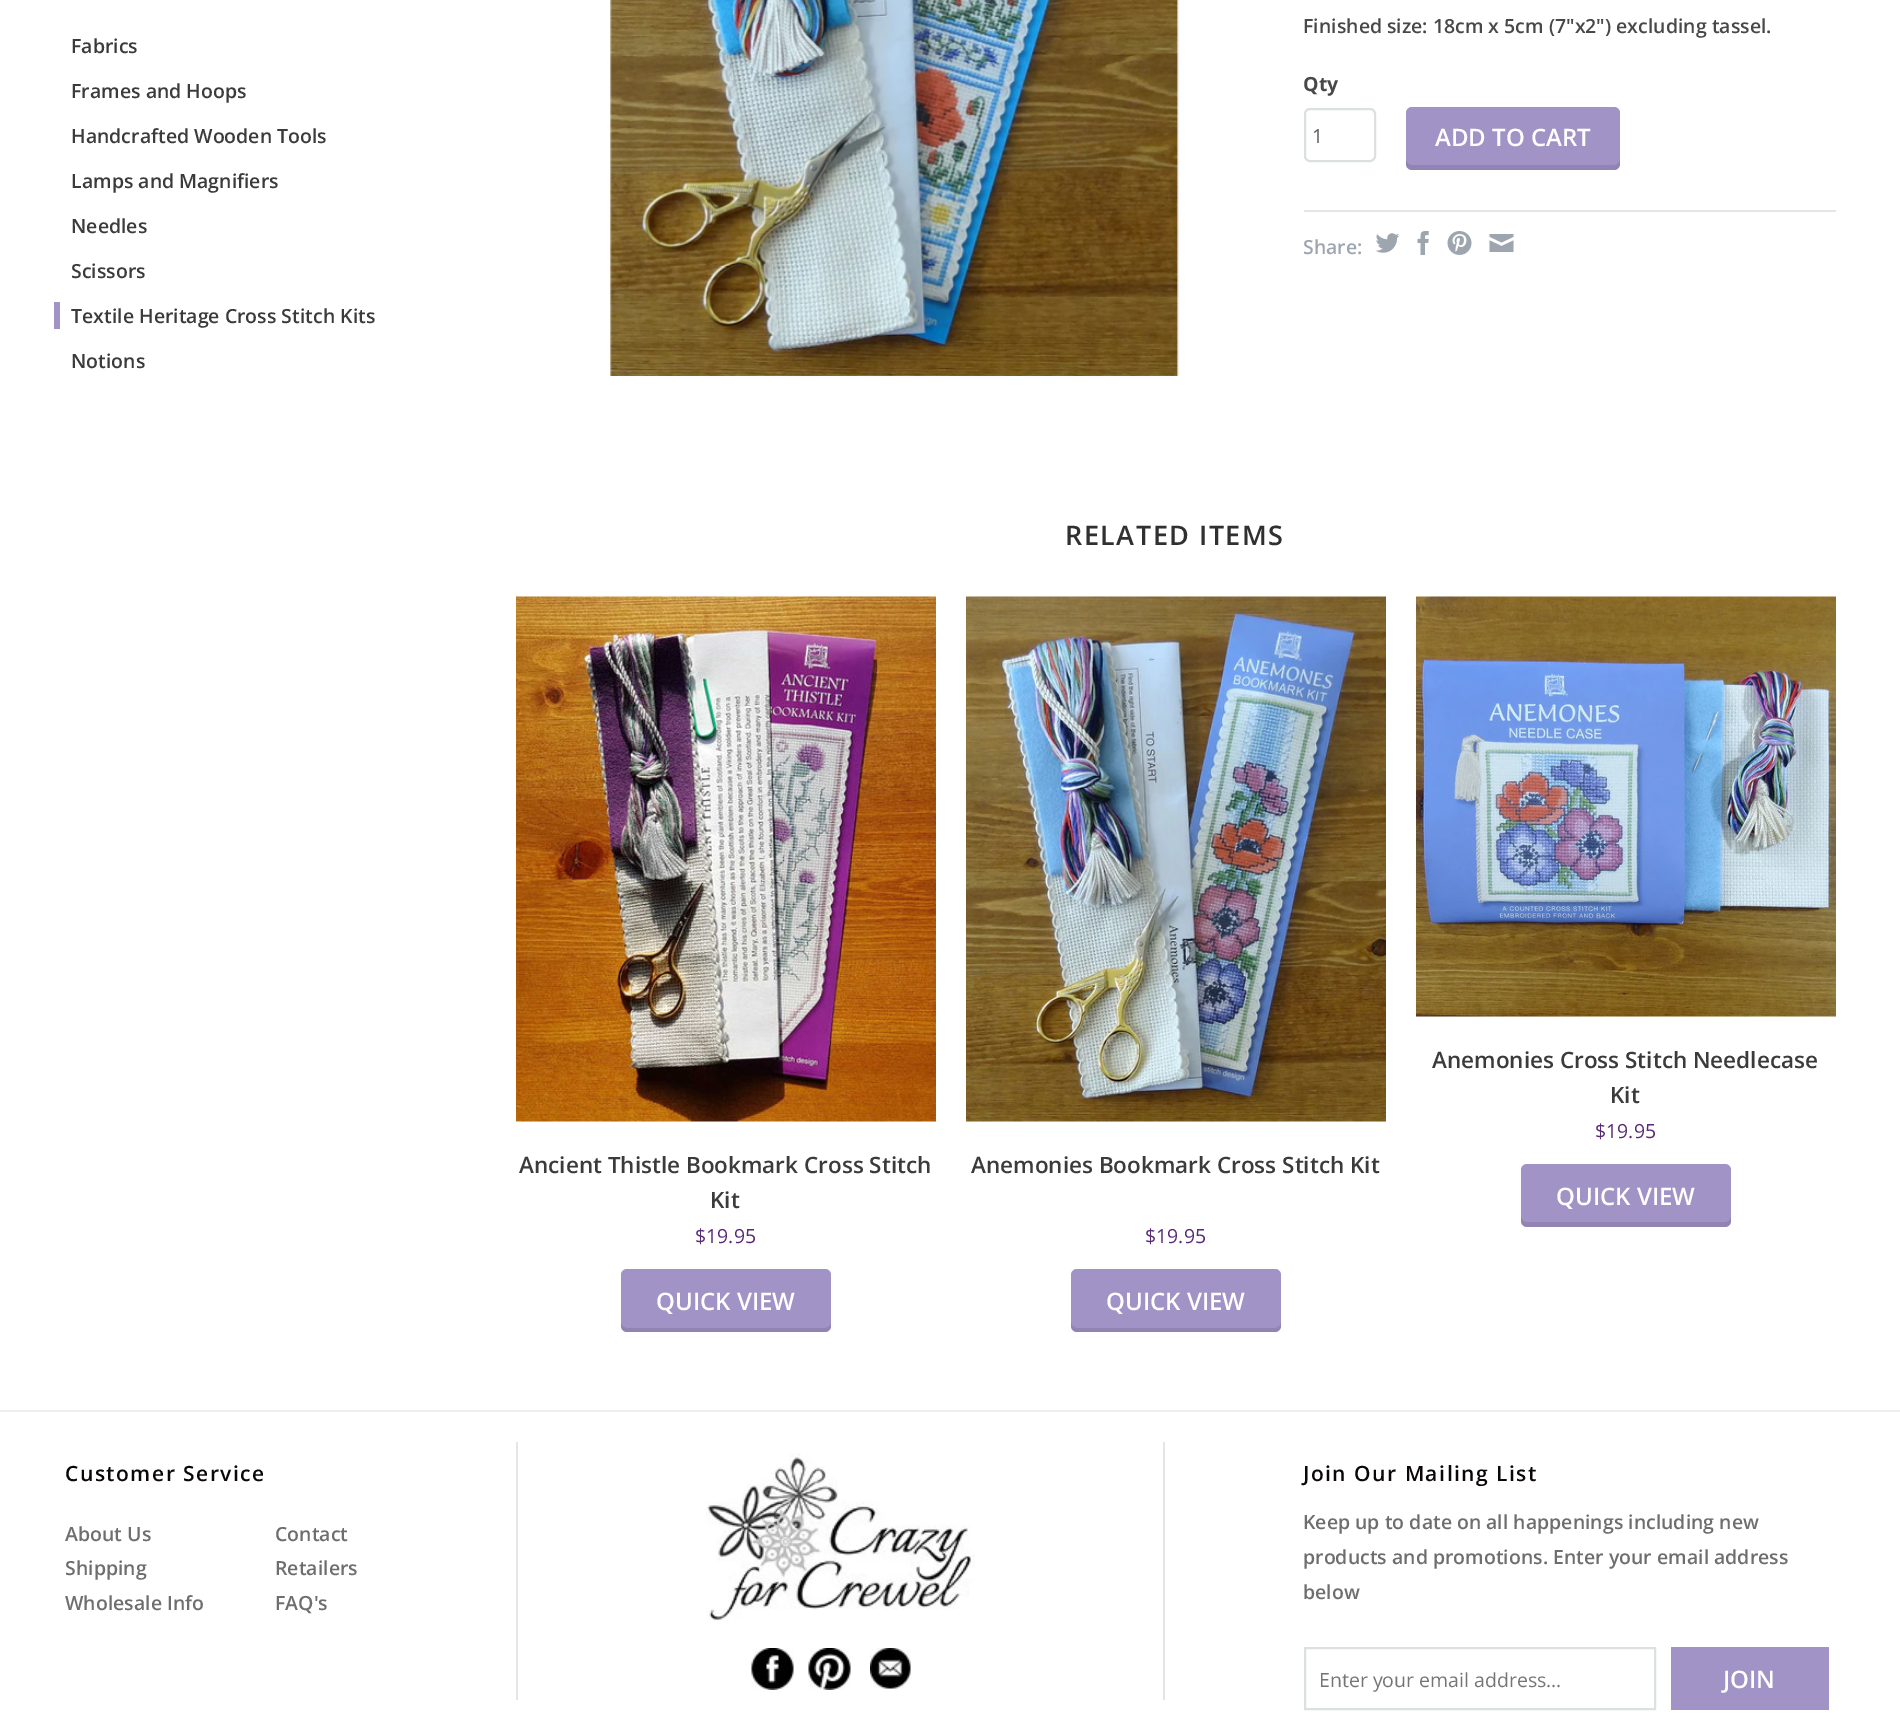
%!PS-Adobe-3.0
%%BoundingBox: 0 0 1900 1717
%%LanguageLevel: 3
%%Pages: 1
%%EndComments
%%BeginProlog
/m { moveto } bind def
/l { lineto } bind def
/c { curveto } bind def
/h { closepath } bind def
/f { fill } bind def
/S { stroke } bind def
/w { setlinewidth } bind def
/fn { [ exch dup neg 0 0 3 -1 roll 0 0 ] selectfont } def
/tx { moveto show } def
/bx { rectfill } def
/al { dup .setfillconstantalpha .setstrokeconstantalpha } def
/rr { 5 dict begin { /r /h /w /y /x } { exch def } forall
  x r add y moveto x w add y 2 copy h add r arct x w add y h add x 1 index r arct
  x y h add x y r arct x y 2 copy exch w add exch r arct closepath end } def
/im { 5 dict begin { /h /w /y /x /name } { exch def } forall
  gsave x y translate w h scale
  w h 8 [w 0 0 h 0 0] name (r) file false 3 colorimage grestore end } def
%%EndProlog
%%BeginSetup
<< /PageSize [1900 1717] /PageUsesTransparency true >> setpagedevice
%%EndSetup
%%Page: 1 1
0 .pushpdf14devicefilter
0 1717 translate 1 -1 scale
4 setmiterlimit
1 setgray
0 0 1900 1717 bx
/OpenSans-SemiBold 19.5 fn
0.231 setgray
(Fabrics) 71 53 tx
(Frames and Hoops) 71 98 tx
(Handcrafted Wooden Tools) 71 143 tx
(Lamps and Magnifiers) 71 188 tx
(Needles) 71 233 tx
(Scissors) 71 278 tx
0.635 0.576 0.78 setrgbcolor
54 302 6 27 bx
0.231 setgray
(Textile Heritage Cross Stitch Kits) 71 323 tx
(Notions) 71 368 tx
(image0.raw) 610 0 569 376 im
0.282 setgray
(Finished size: 18cm x 5cm \(7"x2"\) excluding tassel.) 1303 33 tx
/OpenSans-Bold 19.5 fn
(Qty) 1303 91 tx
0.863 0.878 0.878 setrgbcolor
2 w
1305 109 70 52 5 rr S
/OpenSans-Regular 19.5 fn
0.337 0.353 0.361 setrgbcolor
(1) 1312 143 tx
0.635 0.576 0.78 setrgbcolor
1406 107 214 63 6 rr f
0.1 al
0 setgray
1406 159 m 1406 164 l 1406 167 1409 170 1412 170 c 1614 170 l 1617 170 1620 167 1620 164 c 1620 159 l 1620 162 1617 165 1614 165 c 1412 165 l 1408 165 1406 162 1406 159 c h f
/OpenSans-SemiBold 24 fn
1 al
1 setgray
(ADD TO CART) 1435 146 tx
0.898 setgray
1304 210 532 2 bx
/OpenSans-SemiBold 19.5 fn
0.616 0.651 0.682 setrgbcolor
(Share:) 1303 254 tx
(image1.raw) 1375 233 25 20 im
(image2.raw) 1417 231 12 24 im
(image3.raw) 1447 231 25 24 im
(image4.raw) 1489 234 25 18 im
/OpenSans-SemiBold 27 fn
0.188 setgray
1065 545 m 1.5 0 (RELATED ITEMS) ashow
(image5.raw) 1416 596 420 421 im
/OpenSans-SemiBold 22.5 fn
0.231 setgray
(Anemonies Cross Stitch Needlecase) 1432 1068 tx
(Kit) 1610 1103 tx
/OpenSans-Regular 19.5 fn
0.349 0.165 0.459 setrgbcolor
($19.95) 1595 1138 tx
0.635 0.576 0.78 setrgbcolor
1521 1164 210 63 6 rr f
0.1 al
0 setgray
1521 1216 m 1521 1221 l 1521 1224 1524 1227 1527 1227 c 1725 1227 l 1728 1227 1731 1224 1731 1221 c 1731 1216 l 1731 1220 1728 1222 1725 1222 c 1527 1222 l 1524 1222 1521 1220 1521 1216 c h f
/OpenSans-SemiBold 24 fn
1 al
1 setgray
(QUICK VIEW) 1556 1205 tx
(image6.raw) 516 596 420 526 im
/OpenSans-SemiBold 22.5 fn
0.231 setgray
(Ancient Thistle Bookmark Cross Stitch) 519 1173 tx
(Kit) 710 1208 tx
/OpenSans-Regular 19.5 fn
0.349 0.165 0.459 setrgbcolor
($19.95) 695 1243 tx
0.635 0.576 0.78 setrgbcolor
621 1269 210 63 6 rr f
0.1 al
0 setgray
621 1322 m 621 1326 l 621 1329 624 1332 627 1332 c 825 1332 l 828 1332 831 1329 831 1326 c 831 1322 l 831 1325 828 1328 825 1328 c 627 1328 l 624 1328 621 1325 621 1322 c h f
/OpenSans-SemiBold 24 fn
1 al
1 setgray
(QUICK VIEW) 656 1310 tx
(image7.raw) 966 596 420 526 im
/OpenSans-SemiBold 22.5 fn
0.231 setgray
(Anemonies Bookmark Cross Stitch Kit) 971 1173 tx
/OpenSans-Regular 19.5 fn
0.349 0.165 0.459 setrgbcolor
($19.95) 1145 1243 tx
0.635 0.576 0.78 setrgbcolor
1071 1269 210 63 6 rr f
0.1 al
0 setgray
1071 1322 m 1071 1326 l 1071 1329 1074 1332 1077 1332 c 1275 1332 l 1278 1332 1281 1329 1281 1326 c 1281 1322 l 1281 1325 1278 1328 1275 1328 c 1077 1328 l 1074 1328 1071 1325 1071 1322 c h f
/OpenSans-SemiBold 24 fn
1 al
1 setgray
(QUICK VIEW) 1106 1310 tx
0.933 setgray
0 1410 1900 2 bx
/OpenSans-SemiBold 21 fn
0.043 0.027 0.031 setrgbcolor
65 1481 m 1.5 0 (Customer Service) ashow
/OpenSans-SemiBold 19.5 fn
0.435 0.431 0.431 setrgbcolor
(About Us) 65 1541 tx
(Contact) 275 1541 tx
(Shipping) 65 1575 tx
(Retailers) 275 1575 tx
(Wholesale Info) 65 1610 tx
(FAQ's) 275 1610 tx
0.898 setgray
1163 1442 2 258 bx
516 1442 2 258 bx
(image8.raw) 706 1453 269 168 im
(image9.raw) 751 1648 43 42 im
(image10.raw) 808 1648 43 42 im
(image11.raw) 870 1648 41 41 im
/OpenSans-SemiBold 21 fn
0.043 0.027 0.031 setrgbcolor
1303 1481 m 1.5 0 (Join Our Mailing List) ashow
/OpenSans-SemiBold 19.5 fn
0.435 0.431 0.431 setrgbcolor
(Keep up to date on all happenings including new) 1303 1529 tx
(products and promotions. Enter your email address) 1303 1564 tx
(below) 1303 1599 tx
0.863 0.878 0.878 setrgbcolor
1305 1648 350 61 rectstroke
/OpenSans-Regular 19.5 fn
0.459 setgray
(Enter your email address...) 1319 1687 tx
0.635 0.576 0.78 setrgbcolor
1671 1647 158 63 bx
/OpenSans-SemiBold 24 fn
1 setgray
(JOIN) 1723 1688 tx
.poppdf14devicefilter showpage
%%EOF
